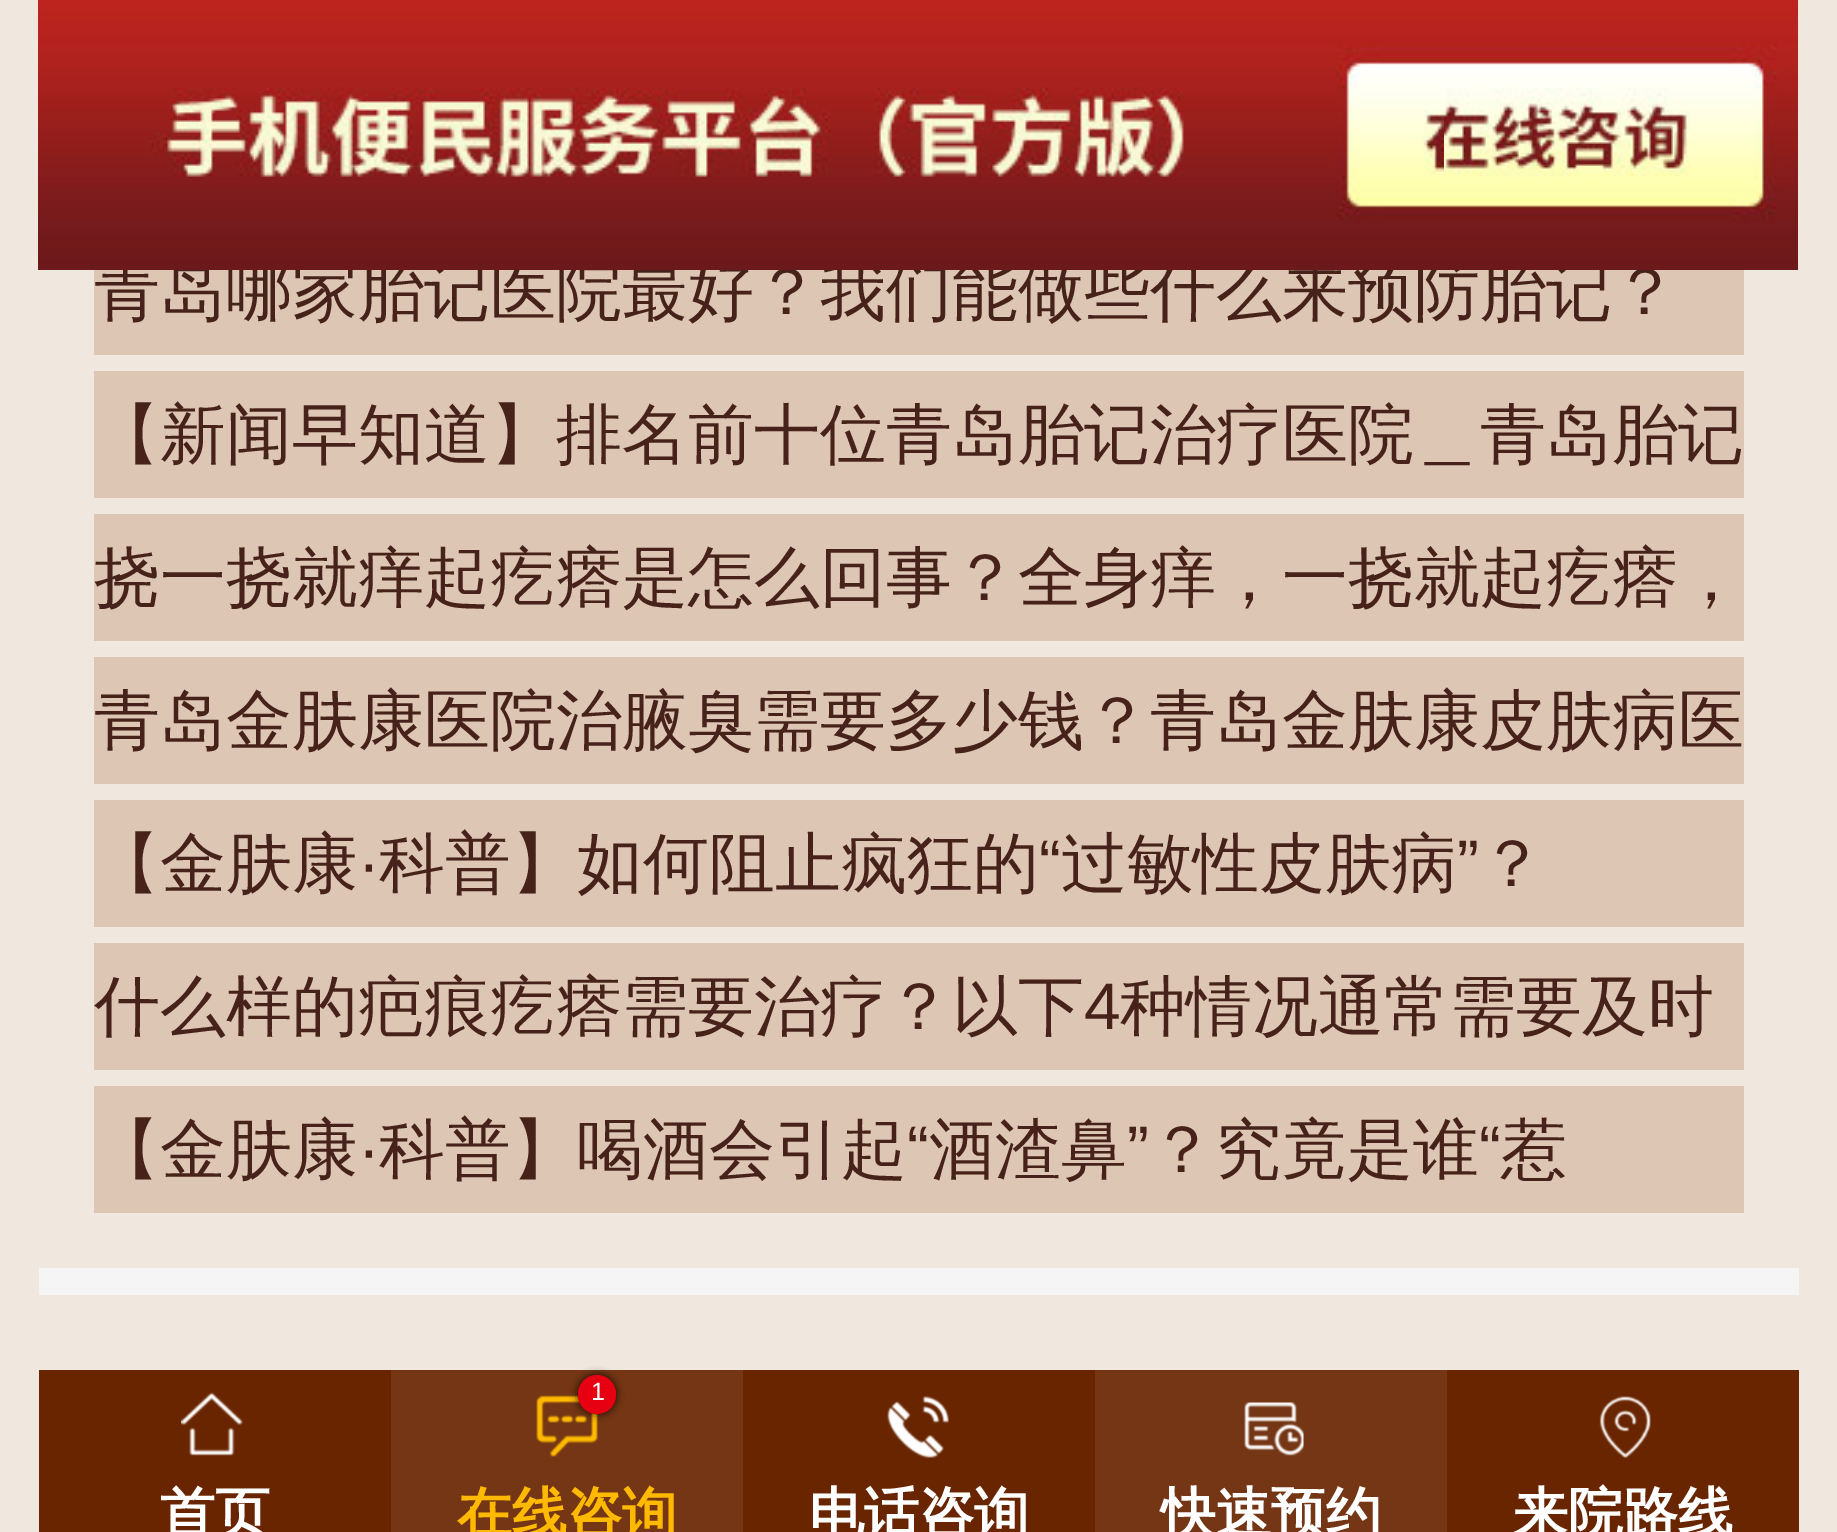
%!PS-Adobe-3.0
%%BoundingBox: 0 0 1837 1532
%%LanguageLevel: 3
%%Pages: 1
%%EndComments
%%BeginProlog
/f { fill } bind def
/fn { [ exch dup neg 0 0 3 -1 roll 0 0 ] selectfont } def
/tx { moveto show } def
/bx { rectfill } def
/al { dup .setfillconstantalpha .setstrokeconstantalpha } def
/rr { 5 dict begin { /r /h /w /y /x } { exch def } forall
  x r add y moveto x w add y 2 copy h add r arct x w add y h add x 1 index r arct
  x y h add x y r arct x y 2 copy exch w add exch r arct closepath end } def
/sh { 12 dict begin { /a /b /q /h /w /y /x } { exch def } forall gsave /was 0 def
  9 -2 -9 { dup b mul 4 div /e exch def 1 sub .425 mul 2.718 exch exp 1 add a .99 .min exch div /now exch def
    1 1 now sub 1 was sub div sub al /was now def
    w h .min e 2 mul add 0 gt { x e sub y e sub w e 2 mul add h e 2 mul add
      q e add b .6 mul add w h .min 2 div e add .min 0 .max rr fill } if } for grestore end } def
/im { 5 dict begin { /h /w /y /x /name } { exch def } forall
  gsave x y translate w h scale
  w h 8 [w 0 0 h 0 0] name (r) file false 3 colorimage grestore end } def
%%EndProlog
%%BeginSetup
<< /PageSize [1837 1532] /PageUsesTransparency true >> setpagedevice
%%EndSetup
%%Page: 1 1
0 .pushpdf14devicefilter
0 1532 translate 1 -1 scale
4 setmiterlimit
0.941 0.906 0.871 setrgbcolor
0 0 1837 1532 bx
0.867 0.776 0.706 setrgbcolor
94 270 1650 85 bx
/WenQuanYiZenHei-Medium 66 fn
0.278 0.133 0.102 setrgbcolor
(青岛哪家胎记医院最好？我们能做些什么来预防胎记？) 94 314 tx
(image0.raw) 38 0 1760 270 im
0.867 0.776 0.706 setrgbcolor
94 371 1650 127 bx
0.278 0.133 0.102 setrgbcolor
(【新闻早知道】排名前十位青岛胎记治疗医院＿青岛胎记) 94 457 tx
0.867 0.776 0.706 setrgbcolor
94 514 1650 127 bx
0.278 0.133 0.102 setrgbcolor
(挠一挠就痒起疙瘩是怎么回事？全身痒，一挠就起疙瘩，) 94 600 tx
0.867 0.776 0.706 setrgbcolor
94 657 1650 127 bx
0.278 0.133 0.102 setrgbcolor
(青岛金肤康医院治腋臭需要多少钱？青岛金肤康皮肤病医) 94 743 tx
0.867 0.776 0.706 setrgbcolor
94 800 1650 127 bx
0.278 0.133 0.102 setrgbcolor
(【金肤康) 94 886 tx
/LiberationSans-Regular 66 fn
(·) 358 886 tx
/WenQuanYiZenHei-Medium 66 fn
(科普】如何阻止疯狂的) 379 886 tx
/LiberationSans-Regular 66 fn
(“) 1039 886 tx
/WenQuanYiZenHei-Medium 66 fn
(过敏性皮肤病) 1061 886 tx
/LiberationSans-Regular 66 fn
(”) 1457 886 tx
/WenQuanYiZenHei-Medium 66 fn
(？) 1479 886 tx
0.867 0.776 0.706 setrgbcolor
94 943 1650 127 bx
0.278 0.133 0.102 setrgbcolor
(什么样的疤痕疙瘩需要治疗？以下) 94 1029 tx
/LiberationSans-Regular 66 fn
(4) 1084 1029 tx
/WenQuanYiZenHei-Medium 66 fn
(种情况通常需要及时) 1120 1029 tx
0.867 0.776 0.706 setrgbcolor
94 1086 1650 127 bx
0.278 0.133 0.102 setrgbcolor
(【金肤康) 94 1172 tx
(科普】喝酒会引起) 379 1172 tx
/LiberationSans-Regular 66 fn
(“) 907 1172 tx
/WenQuanYiZenHei-Medium 66 fn
(酒渣鼻) 929 1172 tx
/LiberationSans-Regular 66 fn
(”) 1127 1172 tx
/WenQuanYiZenHei-Medium 66 fn
(？究竟是谁) 1149 1172 tx
/LiberationSans-Regular 66 fn
(“) 1479 1172 tx
/WenQuanYiZenHei-Medium 66 fn
(惹) 1501 1172 tx
/LiberationSans-Regular 66 fn
(·) 358 1172 tx
0.961 setgray
39 1268 1760 27 bx
0.408 0.145 0 setrgbcolor
39 1370 1760 162 bx
(image1.raw) 181 1392 62 64 im
/WenQuanYiZenHei-Bold 55 fn
1 setgray
(首页) 160 1532 tx
0.455 0.212 0.078 setrgbcolor
391 1370 352 162 bx
(image2.raw) 536 1395 62 62 im
0 setgray
578 1375 38 39 19 4 0.8 sh
0.902 0 0.071 setrgbcolor
578 1375 38 39 19 rr f
/LiberationSans-Regular 25 fn
1 setgray
(1) 591 1400 tx
/WenQuanYiZenHei-Bold 55 fn
1 0.729 0 setrgbcolor
(在线咨询) 457 1532 tx
(image3.raw) 887 1396 62 62 im
1 setgray
(电话咨询) 809 1532 tx
0.455 0.212 0.078 setrgbcolor
1095 1370 352 162 bx
(image4.raw) 1244 1402 60 54 im
1 setgray
(快速预约) 1161 1532 tx
(image5.raw) 1599 1396 52 62 im
(来院路线) 1513 1532 tx
.poppdf14devicefilter showpage
%%EOF
